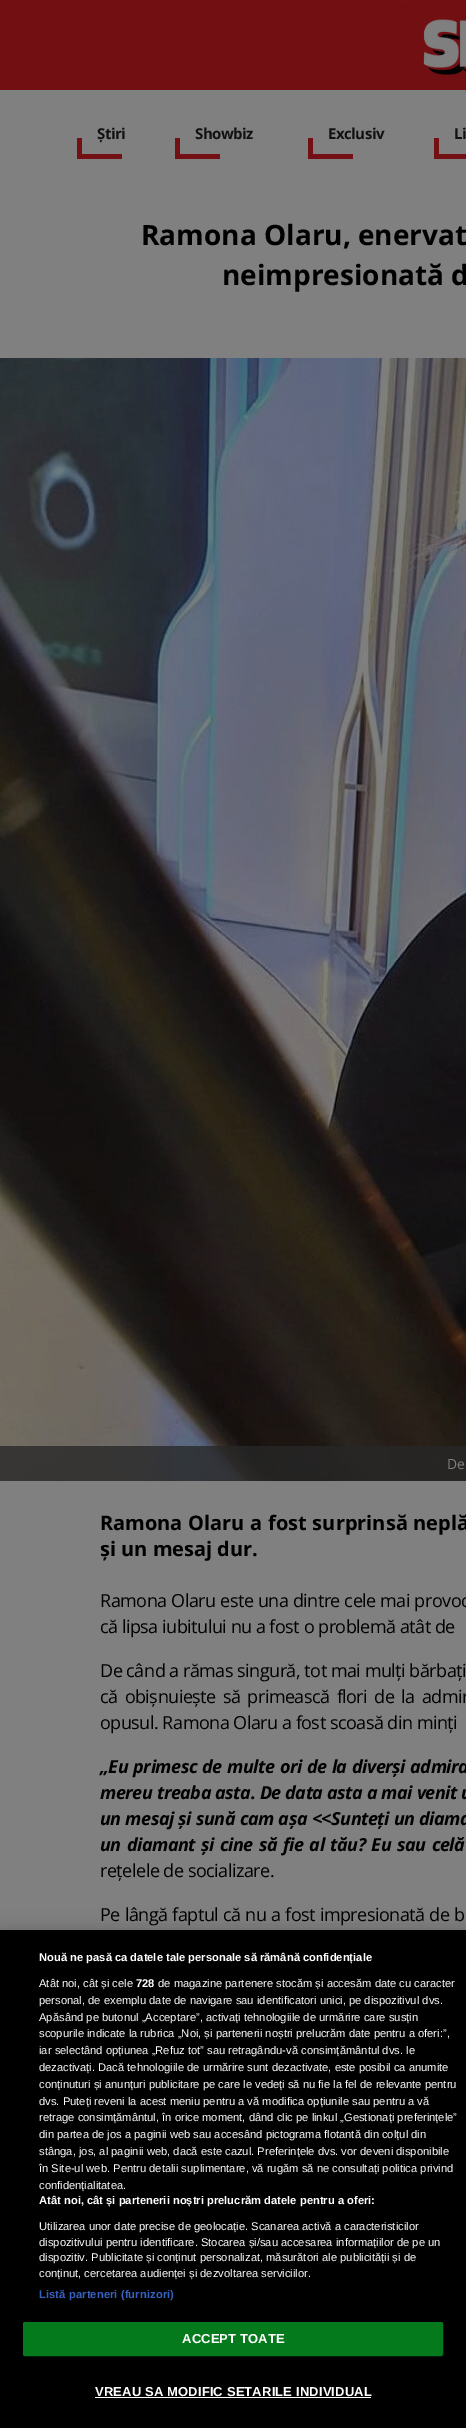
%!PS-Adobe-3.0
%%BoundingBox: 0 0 466 2428
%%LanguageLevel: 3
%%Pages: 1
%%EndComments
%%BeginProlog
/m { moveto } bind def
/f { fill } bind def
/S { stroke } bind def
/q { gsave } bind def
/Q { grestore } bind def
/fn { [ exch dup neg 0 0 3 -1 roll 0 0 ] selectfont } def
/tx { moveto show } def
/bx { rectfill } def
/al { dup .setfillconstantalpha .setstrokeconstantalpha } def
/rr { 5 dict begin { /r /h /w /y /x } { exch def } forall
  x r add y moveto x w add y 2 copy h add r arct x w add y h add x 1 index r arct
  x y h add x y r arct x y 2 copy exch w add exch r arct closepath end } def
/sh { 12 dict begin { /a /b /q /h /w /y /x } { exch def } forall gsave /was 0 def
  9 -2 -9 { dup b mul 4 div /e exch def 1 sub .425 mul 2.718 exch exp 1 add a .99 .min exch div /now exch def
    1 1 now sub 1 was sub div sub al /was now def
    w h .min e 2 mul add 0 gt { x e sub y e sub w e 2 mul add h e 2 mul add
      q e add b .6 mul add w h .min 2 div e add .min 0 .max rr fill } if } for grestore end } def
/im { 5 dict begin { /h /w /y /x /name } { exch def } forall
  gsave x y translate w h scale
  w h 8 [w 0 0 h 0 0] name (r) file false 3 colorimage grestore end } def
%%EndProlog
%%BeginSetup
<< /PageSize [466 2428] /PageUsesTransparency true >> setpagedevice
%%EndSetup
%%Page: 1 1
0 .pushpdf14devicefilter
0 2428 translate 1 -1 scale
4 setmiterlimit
0.502 setgray
0 0 466 2428 bx
0.447 0.059 0.075 setrgbcolor
0 0 466 90 bx
(image0.raw) 399 0 67 75 im
/OpenSans-Bold 15 fn
0.067 setgray
97 139 m -0.5 0 (Știri) ashow
0.447 0.063 0.075 setrgbcolor
77 154 45 5 bx
77 138 5 21 bx
0.067 setgray
195 139 m -0.5 0 (Showbiz) ashow
0.447 0.063 0.075 setrgbcolor
175 154 45 5 bx
175 138 5 21 bx
0.067 setgray
328 139 m -0.5 0 (Exclusiv) ashow
0.447 0.063 0.075 setrgbcolor
308 154 45 5 bx
308 138 5 21 bx
0.067 setgray
454 139 m -0.5 0 (Li) ashow
0.447 0.063 0.075 setrgbcolor
434 154 32 5 bx
434 138 5 21 bx
/OpenSans-Bold 28 fn
0 setgray
(Ramona Olaru, enervat) 141 245 tx
(neimpresionată d) 222 285 tx
(image1.raw) 0 358 466 1123 im
0.78 al
0.153 setgray
0 1446 466 35 bx
/OpenSans-Regular 14 fn
1 al
0.502 setgray
(De) 447 1469 tx
/OpenSans-Bold 20 fn
0 setgray
100 1530 m 0.5 0 32 (Ramona Olaru a fost surprinsă neplă) widthshow
(și un mesaj dur.) 100 1556 tx
/OpenSans-Regular 18 fn
100 1607 m 0.25 0 32 -0.5 0 (Ramona Olaru este una dintre cele mai provoc) awidthshow
100 1633 m -0.5 0 (că lipsa iubitului nu a fost o problemă atât de) ashow
100 1677 m -0.5 0 (De când a rămas singură, tot mai mulți bărbați) ashow
100 1703 m 2.75 0 32 -0.5 0 (că obișnuiește să primească flori de la admir) awidthshow
100 1729 m -0.5 0 (opusul. Ramona Olaru a fost scoasă din minți) ashow
/OpenSans-BoldItalic 18 fn
100 1773 m 1 0 32 -0.5 0 („Eu primesc de multe ori de la diverși admira) awidthshow
100 1799 m 0.25 0 32 -0.5 0 (mereu treaba asta. De data asta a mai venit u) awidthshow
100 1825 m 0.5 0 32 -0.5 0 (un mesaj și sună cam așa <<Sunteți un diama) awidthshow
100 1851 m 1.75 0 32 -0.5 0 (un diamant și cine să fie al tău? Eu sau celă) awidthshow
/OpenSans-Regular 18 fn
100 1877 m -0.5 0 (rețelele de socializare.) ashow
100 1921 m 0.5 0 32 -0.5 0 (Pe lângă faptul că nu a fost impresionată de b) awidthshow
0 1930 466 498 0 9 0.2 sh
0 1930 466 498 bx
/LiberationSans-Bold 11.2 fn
1 setgray
(Nouă ne pasă ca datele tale personale să rămână confidențiale) 39 1961 tx
/LiberationSans-Regular 11.2 fn
(Atât noi, cât și cele) 39 1987 tx
/LiberationSans-Bold 11.2 fn
(728) 136 1987 tx
/LiberationSans-Regular 11.2 fn
(de magazine partenere stocăm și accesăm date cu caracter) 158 1987 tx
(personal, de exemplu date de navigare sau identificatori unici, pe dispozitivul dvs.) 39 2004 tx
(Apăsând pe butonul „Acceptare”, activați tehnologiile de urmărire care susțin) 39 2021 tx
(scopurile indicate la rubrica „Noi, și partenerii noștri prelucrăm date pentru a oferi:”,) 39 2037 tx
(iar selectând opțiunea „Refuz tot” sau retragându-vă consimțământul dvs. le) 39 2054 tx
(dezactivați. Dacă tehnologiile de urmărire sunt dezactivate, este posibil ca anumite) 39 2071 tx
(conținuturi și anunțuri publicitare pe care le vedeți să nu fie la fel de relevante pentru) 39 2088 tx
(dvs. Puteți reveni la acest meniu pentru a vă modifica opțiunile sau pentru a vă) 39 2105 tx
(retrage consimțământul, în orice moment, dând clic pe linkul „Gestionați preferințele”) 39 2121 tx
(din partea de jos a paginii web sau accesând pictograma flotantă din colțul din) 39 2138 tx
(stânga, jos, al paginii web, dacă este cazul. Preferințele dvs. vor deveni disponibile) 39 2155 tx
(în Site-ul web. Pentru detalii suplimentare, vă rugăm să ne consultați politica privind) 39 2172 tx
(confidențialitatea.) 39 2189 tx
/LiberationSans-Bold 11.2 fn
(Atât noi, cât și partenerii noștri prelucrăm datele pentru a oferi:) 39 2204 tx
/LiberationSans-Regular 11.2 fn
(Utilizarea unor date precise de geolocație. Scanarea activă a caracteristicilor) 39 2230 tx
(dispozitivului pentru identificare. Stocarea și/sau accesarea informațiilor de pe un) 39 2246 tx
(dispozitiv. Publicitate și conținut personalizat, măsurători ale publicității și de) 39 2261 tx
(conținut, cercetarea audienței și dezvoltarea serviciilor.) 39 2277 tx
/LiberationSans-Bold 11.2 fn
0.22 0.376 0.745 setrgbcolor
39 2298 m 0.1 0 (Listă parteneri \(furnizori\)) ashow
0.02 0.478 0.114 setrgbcolor
23.5 2322.5 419 33 1.5 rr q f Q
S
/LiberationSans-Bold 13 fn
1 setgray
182 2343 m 0.15 0 (ACCEPT TOATE) ashow
95 2396 m 0.15 0 (VREAU SA MODIFIC SETARILE INDIVIDUAL) ashow
95 2397 276 1 bx
.poppdf14devicefilter showpage
%%EOF
